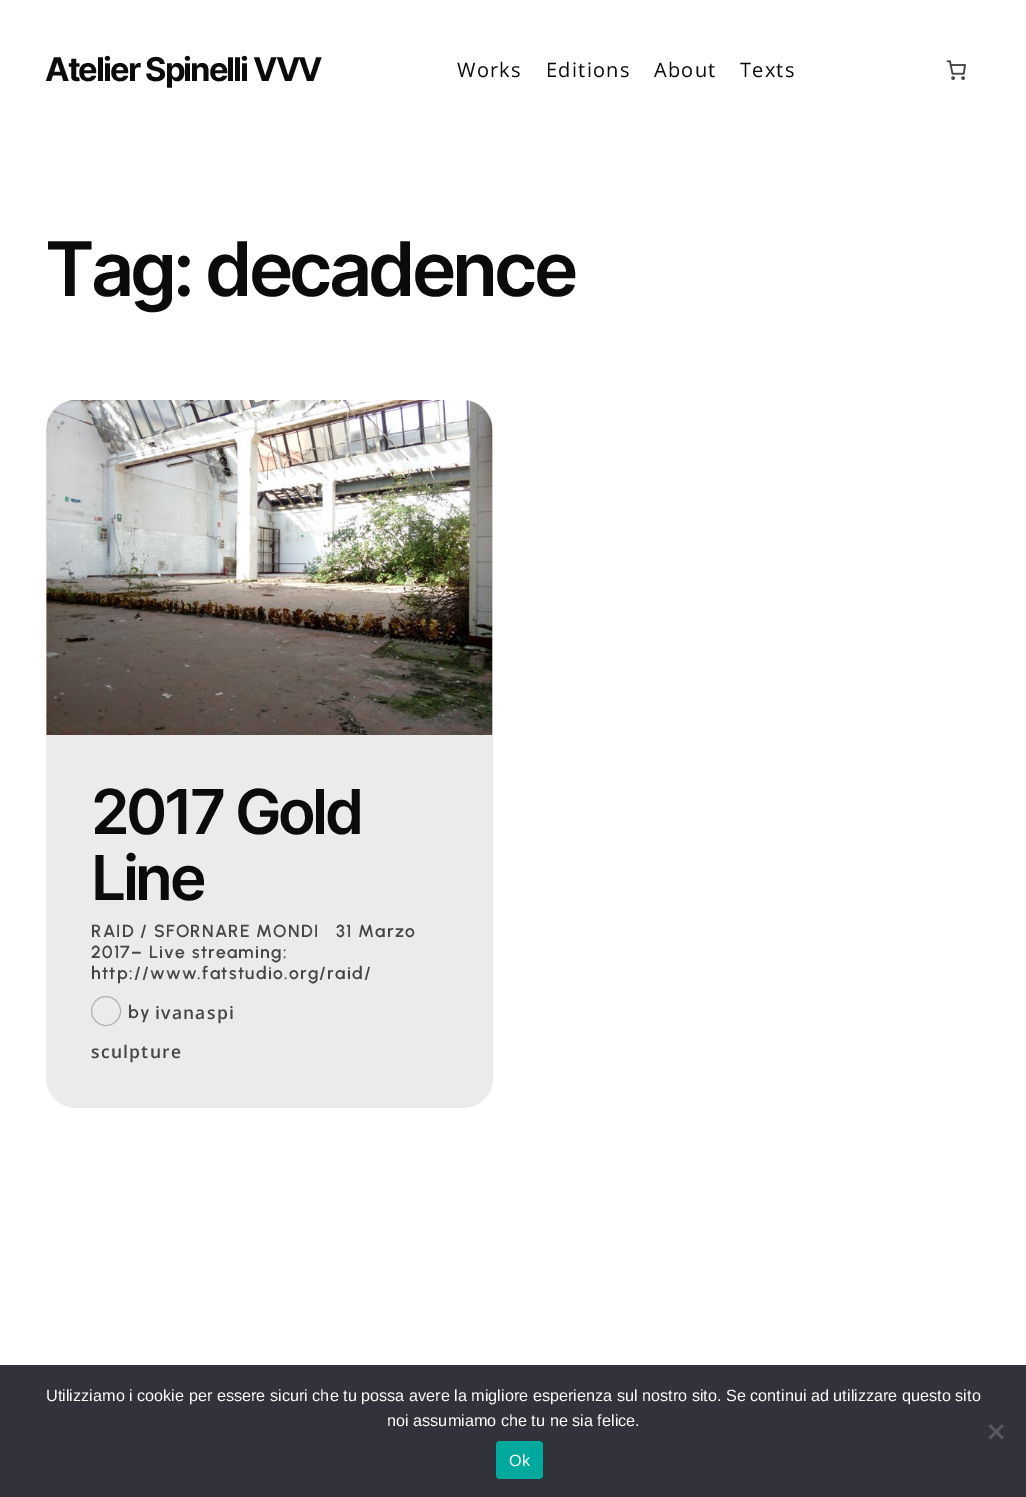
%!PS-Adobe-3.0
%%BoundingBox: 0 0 1026 1497
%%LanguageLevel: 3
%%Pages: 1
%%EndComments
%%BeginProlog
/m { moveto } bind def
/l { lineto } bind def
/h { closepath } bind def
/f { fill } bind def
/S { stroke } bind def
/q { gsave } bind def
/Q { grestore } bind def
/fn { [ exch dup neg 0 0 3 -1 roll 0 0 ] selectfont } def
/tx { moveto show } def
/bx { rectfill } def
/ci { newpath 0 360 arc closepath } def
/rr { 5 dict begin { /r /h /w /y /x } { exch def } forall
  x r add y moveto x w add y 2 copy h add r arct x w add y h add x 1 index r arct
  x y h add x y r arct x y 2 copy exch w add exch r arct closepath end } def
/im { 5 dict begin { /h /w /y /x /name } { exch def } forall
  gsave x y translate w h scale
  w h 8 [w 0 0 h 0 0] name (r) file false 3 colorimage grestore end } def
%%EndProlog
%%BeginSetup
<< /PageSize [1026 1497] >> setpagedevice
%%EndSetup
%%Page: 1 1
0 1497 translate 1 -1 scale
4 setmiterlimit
1 setgray
0 0 1026 1497 bx
/Inter-Bold 32.75 fn
0.043 setgray
45 81 m -1.9 0 (Atelier Spinelli VVV) ashow
/OpenSans-Regular 20 fn
457 77 m 1.25 0 (Works) ashow
546 77 m 1.25 0 (Editions) ashow
654 77 m 1.25 0 (About) ashow
740 77 m 1.25 0 (Texts) ashow
(image0.raw) 946 60 20 20 im
/Inter-SemiBold 75.25 fn
45 296 m -4 0 (Tag: decadence) ashow
0.922 setgray
45.5 399.5 448 709 29.5 rr q f Q
1 setgray
S
(image1.raw) 46 400 447 335 im
/Inter-SemiBold 62 fn
0.043 setgray
91 834 m -3.5 0 (2017 Gold) ashow
91 900 m -3.5 0 (Line) ashow
/Urbanist-SemiBold 17.5 fn
0.271 setgray
91 937 m 1.25 0 (RAID / SFORNARE MONDI   31 Marzo) ashow
91 958 m 1.25 0 (2017– Live streaming:) ashow
91 979 m 1.25 0 (http://www.fatstudio.org/raid/) ashow
0.698 setgray
106 1011 14.5 ci S
0.271 setgray
128 1018 m 1.25 0 (by) ashow
/OpenSans-SemiBold 17.5 fn
155 1019 m 1.25 0 (ivanaspi) ashow
91 1058 m 1.25 0 (sculpture) ashow
0.196 0.196 0.227 setrgbcolor
0 1365 1026 132 bx
/LiberationSans-Regular 16.25 fn
1 setgray
(Utilizziamo i cookie per essere sicuri che tu possa avere la migliore esperienza sul nostro sito. Se continui ad utilizzare questo sito) 46 1401 tx
(noi assumiamo che tu ne sia felice.) 387 1426 tx
0.349 0.349 0.365 setrgbcolor
1002 1424.5 m 1004 1426 l 990.5 1439.5 l 988.5 1437.5 l h f
988.5 1426 m 990.5 1424.5 l 1004 1437.5 l 1002 1439.5 l h f
0 0.663 0.616 setrgbcolor
496 1441 47 38 4 rr f
1 setgray
(Ok) 509 1466 tx
showpage
%%EOF
